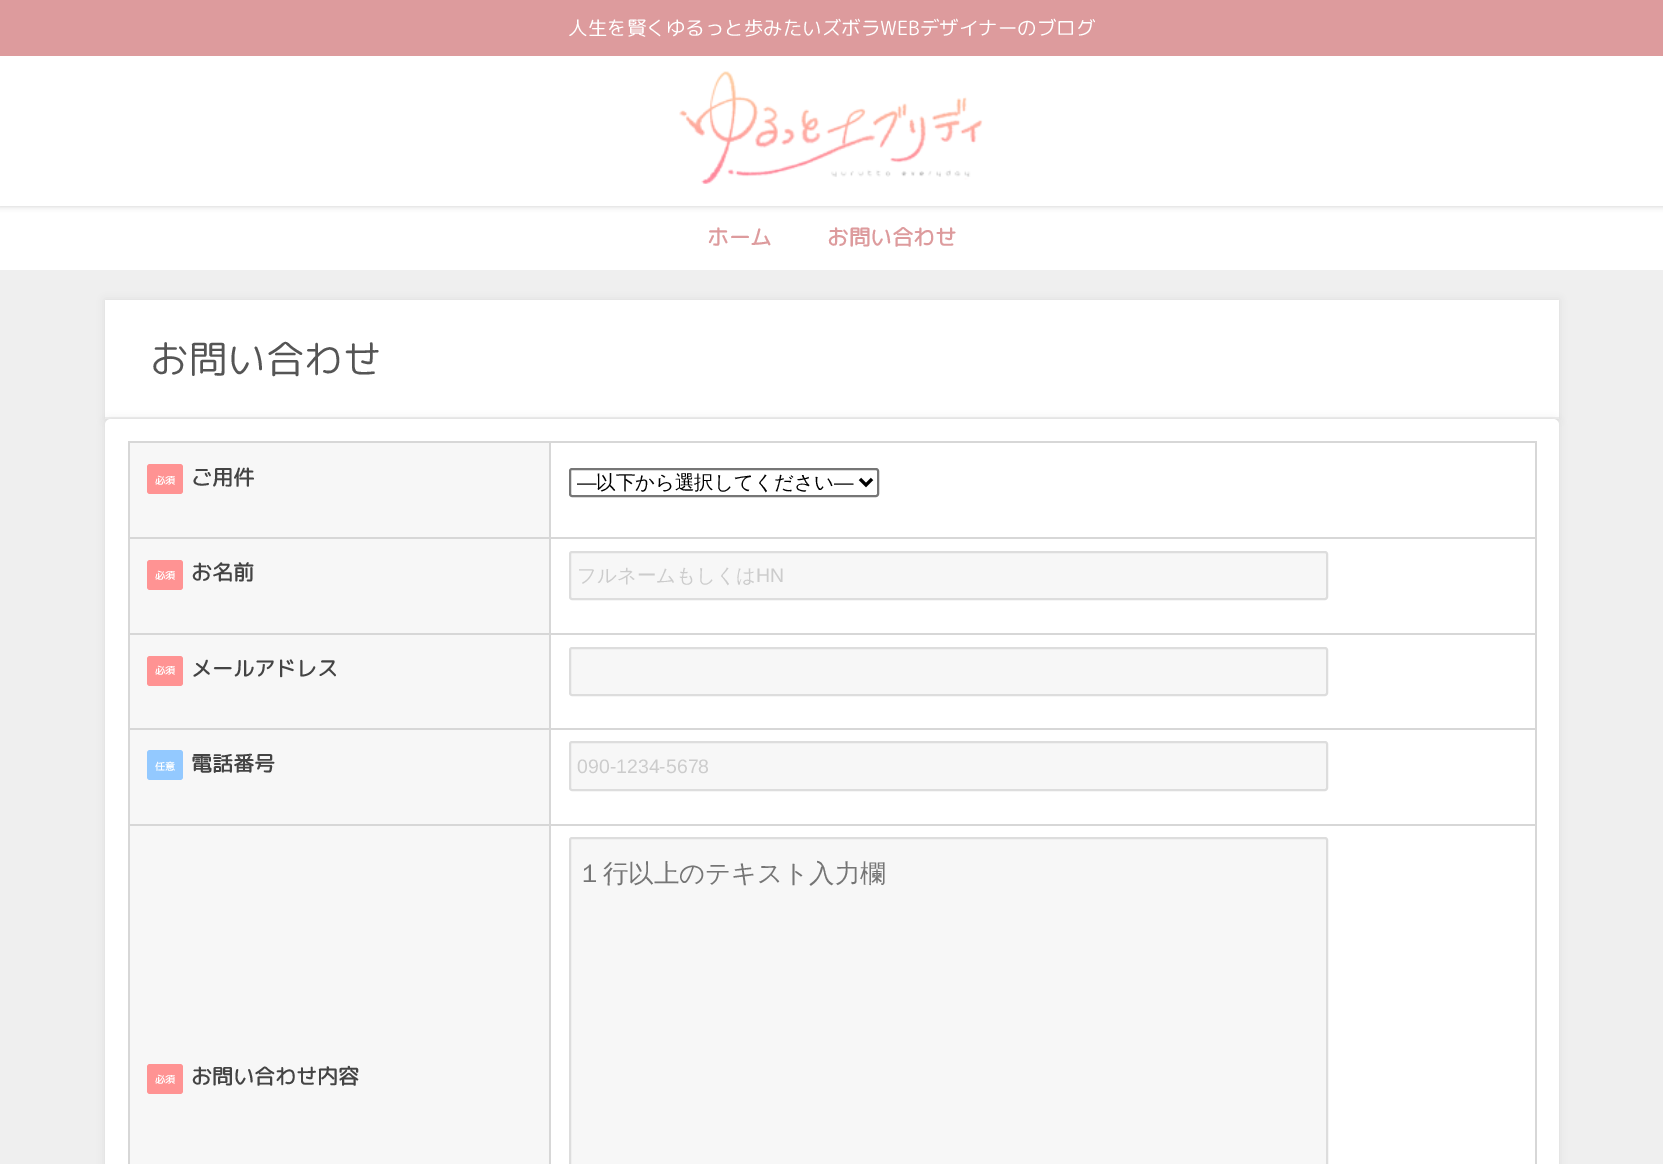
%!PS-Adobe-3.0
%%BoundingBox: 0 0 1663 1164
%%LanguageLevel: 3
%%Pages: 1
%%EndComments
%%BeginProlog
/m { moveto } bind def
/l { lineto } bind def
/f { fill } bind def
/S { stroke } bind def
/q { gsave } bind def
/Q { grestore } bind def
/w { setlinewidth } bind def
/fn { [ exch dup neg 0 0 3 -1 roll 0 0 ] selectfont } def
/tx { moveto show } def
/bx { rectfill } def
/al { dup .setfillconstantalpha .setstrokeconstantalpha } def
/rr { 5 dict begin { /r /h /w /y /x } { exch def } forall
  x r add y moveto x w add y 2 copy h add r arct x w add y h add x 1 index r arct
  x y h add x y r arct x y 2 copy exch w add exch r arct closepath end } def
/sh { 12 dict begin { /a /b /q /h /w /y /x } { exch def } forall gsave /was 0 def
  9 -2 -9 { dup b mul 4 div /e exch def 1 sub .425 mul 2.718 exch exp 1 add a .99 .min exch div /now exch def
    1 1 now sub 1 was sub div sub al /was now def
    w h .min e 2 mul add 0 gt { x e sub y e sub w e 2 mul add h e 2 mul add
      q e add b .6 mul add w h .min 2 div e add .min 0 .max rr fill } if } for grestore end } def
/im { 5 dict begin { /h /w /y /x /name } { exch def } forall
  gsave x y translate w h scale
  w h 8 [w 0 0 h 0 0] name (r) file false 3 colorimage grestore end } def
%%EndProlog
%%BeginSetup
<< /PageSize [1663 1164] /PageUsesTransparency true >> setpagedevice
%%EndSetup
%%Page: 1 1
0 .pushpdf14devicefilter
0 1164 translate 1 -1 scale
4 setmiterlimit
0.937 setgray
0 0 1663 1164 bx
1 setgray
0 206 1663 64 bx
0 setgray
0 0 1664 206 0 3 0.2 sh
1 setgray
0 56 1663 150 bx
0.867 0.608 0.616 setrgbcolor
0 0 1663 56 bx
/RoundedMplus1c-Regular 19.5 fn
1 setgray
(人生を賢くゆるっと歩みたいズボラWEBデザイナーのブログ) 568 35 tx
(image0.raw) 679 71 304 113 im
/RoundedMplus1c-Bold 21.5 fn
0.867 0.608 0.616 setrgbcolor
(ホーム) 707 245 tx
(お問い合わせ) 827 245 tx
0.588 setgray
105 300 1454 119 0 4 0.2 sh
1 setgray
105 300 1454 117 bx
0.933 setgray
105 417 1454 2 bx
/RoundedMplus1c-Regular 38.5 fn
0.333 setgray
(お問い合わせ) 150 373 tx
0.588 setgray
105 419 1454 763 6 4 0.2 sh
1 setgray
105 419 1454 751 6 rr f
0.969 setgray
130 443 419 94 bx
0.843 setgray
549 441 987 2 bx
549 537 987 2 bx
549 633 987 2 bx
549 728 987 2 bx
549 824 987 2 bx
549 824 2 340 bx
128 824 423 2 bx
549 728 2 97 bx
128 728 423 2 bx
549 633 2 96 bx
128 633 423 2 bx
549 537 2 98 bx
128 537 423 2 bx
549 441 2 98 bx
128 441 423 2 bx
128 824 2 340 bx
128 728 2 97 bx
128 633 2 96 bx
128 537 2 98 bx
128 441 2 98 bx
1 0.576 0.576 setrgbcolor
147 464 36 30 3 rr f
/RoundedMplus1c-Bold 10 fn
1 setgray
(必須) 155 484 tx
/RoundedMplus1c-Bold 21 fn
0.267 setgray
(ご用件) 191 485 tx
0.843 setgray
1535 824 2 340 bx
1535 728 2 97 bx
1535 633 2 96 bx
1535 537 2 98 bx
1535 441 2 98 bx
0.463 setgray
2 w
570 469 308 27 2 rr S
0 setgray
3 w
860 479 m 866 485 l 872 479 l S
/LiberationSans-Regular 19.5 fn
(—) 577 489 tx
/WenQuanYiZenHei-Medium 19.5 fn
(以下から選択してください) 596 489 tx
/LiberationSans-Regular 19.5 fn
(—) 834 489 tx
0.969 setgray
130 539 419 94 bx
1 0.576 0.576 setrgbcolor
147 560 36 30 3 rr f
/RoundedMplus1c-Bold 10 fn
1 setgray
(必須) 155 579 tx
/RoundedMplus1c-Bold 21 fn
0.267 setgray
(お名前) 191 580 tx
0.969 setgray
570 552 757 47 2 rr q f Q
0.867 setgray
2 w
S
/WenQuanYiZenHei-Medium 19.5 fn
0.8 setgray
(フルネームもしくは) 577 582 tx
/LiberationSans-Regular 19.5 fn
(HN) 756 582 tx
0.969 setgray
130 635 419 93 bx
1 0.576 0.576 setrgbcolor
147 656 36 30 3 rr f
/RoundedMplus1c-Bold 10 fn
1 setgray
(必須) 155 674 tx
/RoundedMplus1c-Bold 21 fn
0.267 setgray
(メールアドレス) 191 676 tx
0.969 setgray
570 648 757 47 2 rr q f Q
0.867 setgray
S
0.969 setgray
130 730 419 94 bx
0.576 0.788 1 setrgbcolor
147 750 36 30 3 rr f
/RoundedMplus1c-Bold 10 fn
1 setgray
(任意) 155 770 tx
/RoundedMplus1c-Bold 21 fn
0.267 setgray
(電話番号) 191 771 tx
0.969 setgray
570 742 757 48 2 rr q f Q
0.867 setgray
S
/LiberationSans-Regular 19.5 fn
0.8 setgray
(090-1234-5678) 577 773 tx
0.969 setgray
570 838 757 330 2 rr q f Q
0.867 setgray
S
/WenQuanYiZenHei-Medium 25.5 fn
0.459 setgray
(１行以上のテキスト入力欄) 577 882 tx
0.969 setgray
130 826 419 338 bx
1 0.576 0.576 setrgbcolor
147 1064 36 30 3 rr f
/RoundedMplus1c-Bold 10 fn
1 setgray
(必須) 155 1083 tx
/RoundedMplus1c-Bold 21 fn
0.267 setgray
(お問い合わせ内容) 191 1084 tx
.poppdf14devicefilter showpage
%%EOF
